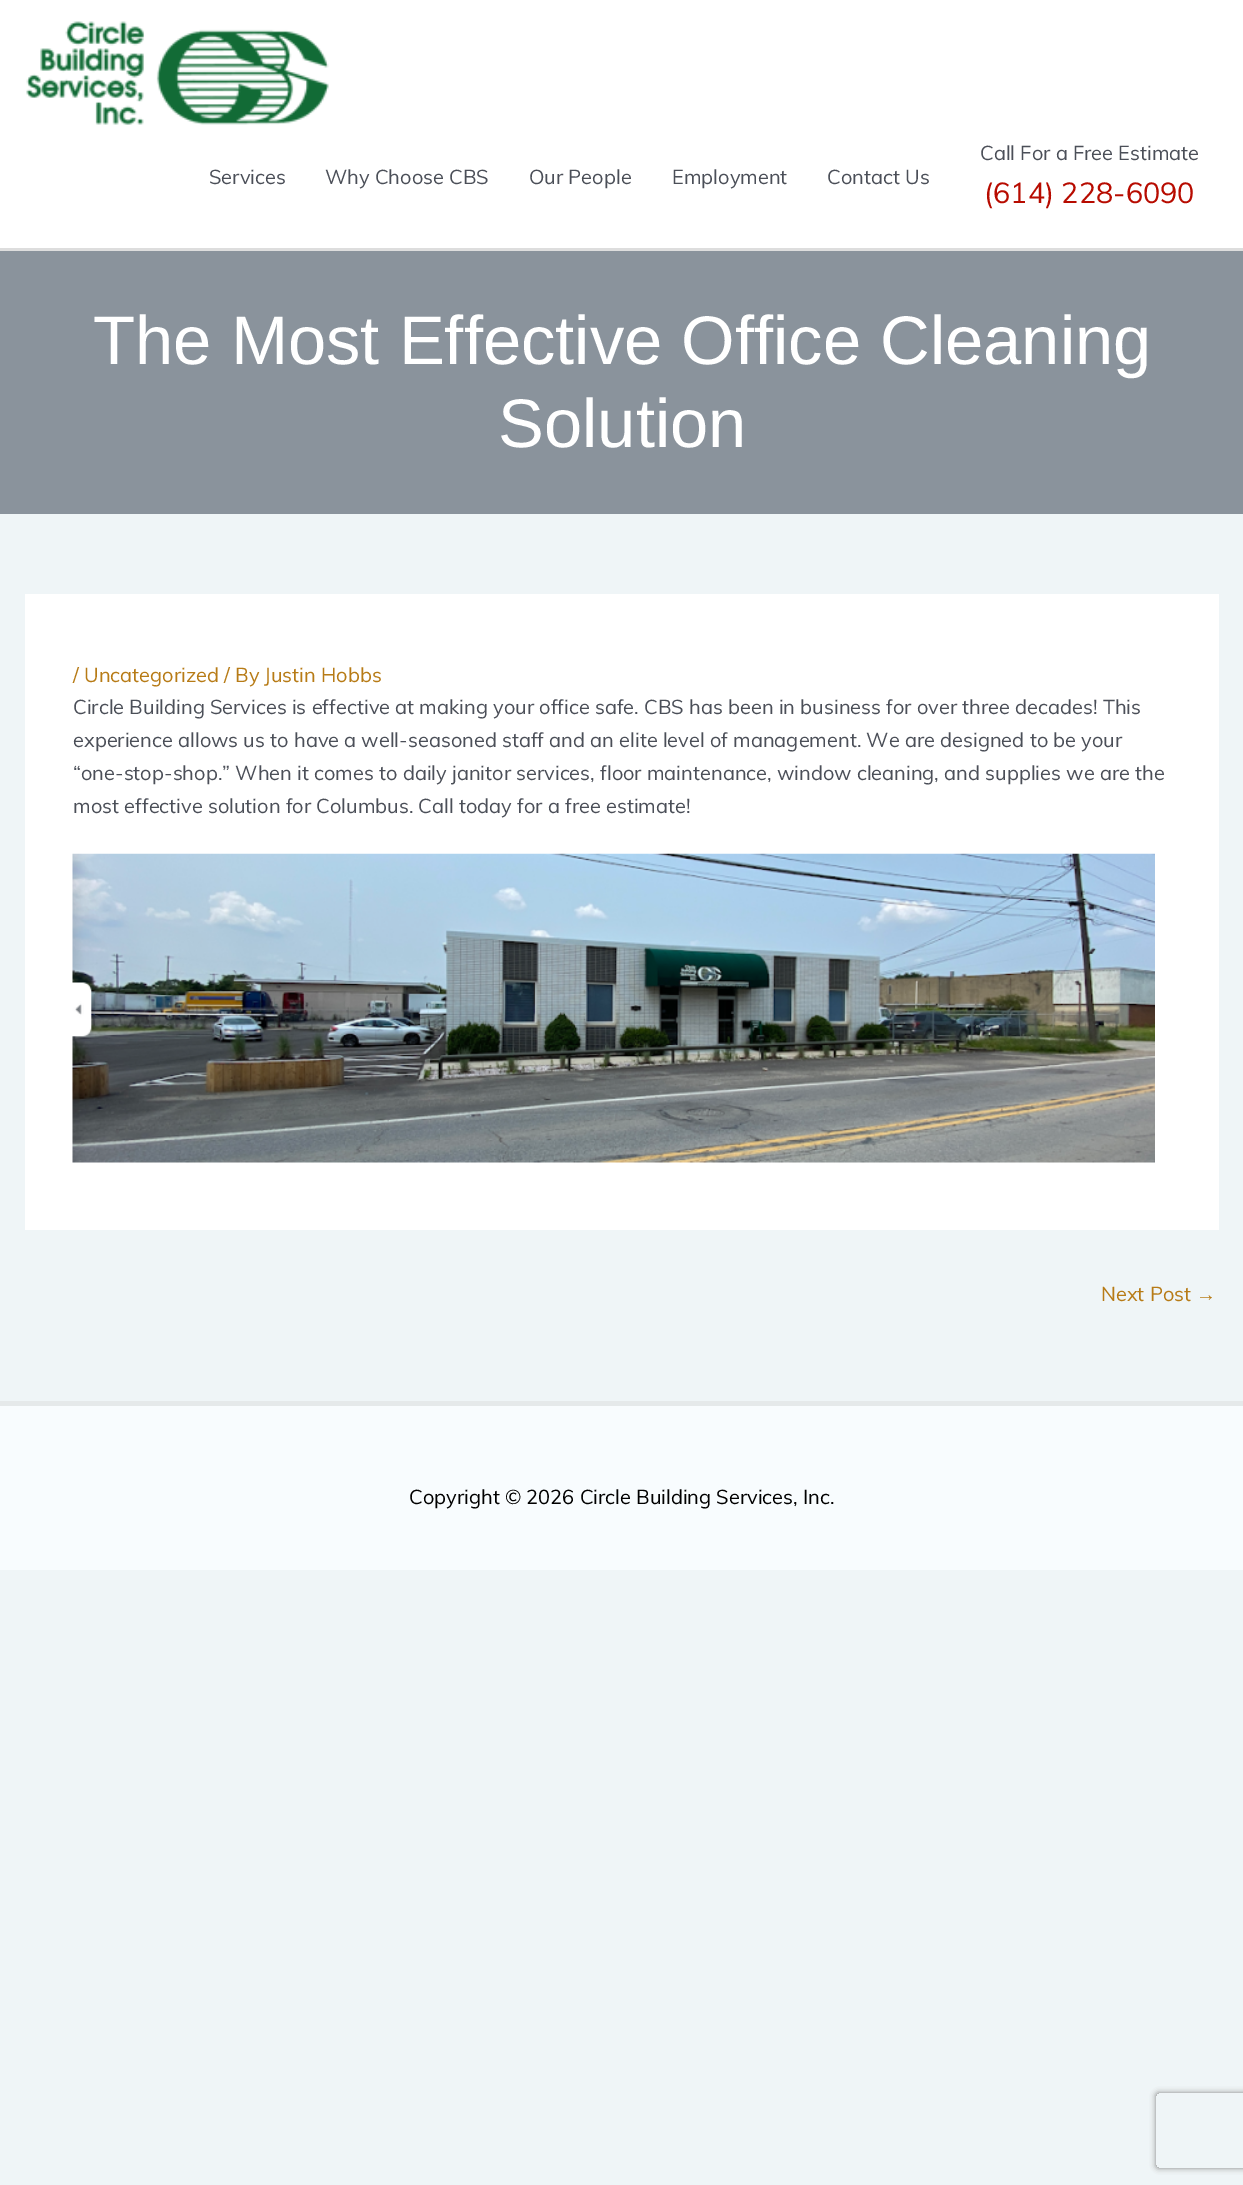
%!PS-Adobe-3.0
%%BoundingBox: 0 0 1243 2185
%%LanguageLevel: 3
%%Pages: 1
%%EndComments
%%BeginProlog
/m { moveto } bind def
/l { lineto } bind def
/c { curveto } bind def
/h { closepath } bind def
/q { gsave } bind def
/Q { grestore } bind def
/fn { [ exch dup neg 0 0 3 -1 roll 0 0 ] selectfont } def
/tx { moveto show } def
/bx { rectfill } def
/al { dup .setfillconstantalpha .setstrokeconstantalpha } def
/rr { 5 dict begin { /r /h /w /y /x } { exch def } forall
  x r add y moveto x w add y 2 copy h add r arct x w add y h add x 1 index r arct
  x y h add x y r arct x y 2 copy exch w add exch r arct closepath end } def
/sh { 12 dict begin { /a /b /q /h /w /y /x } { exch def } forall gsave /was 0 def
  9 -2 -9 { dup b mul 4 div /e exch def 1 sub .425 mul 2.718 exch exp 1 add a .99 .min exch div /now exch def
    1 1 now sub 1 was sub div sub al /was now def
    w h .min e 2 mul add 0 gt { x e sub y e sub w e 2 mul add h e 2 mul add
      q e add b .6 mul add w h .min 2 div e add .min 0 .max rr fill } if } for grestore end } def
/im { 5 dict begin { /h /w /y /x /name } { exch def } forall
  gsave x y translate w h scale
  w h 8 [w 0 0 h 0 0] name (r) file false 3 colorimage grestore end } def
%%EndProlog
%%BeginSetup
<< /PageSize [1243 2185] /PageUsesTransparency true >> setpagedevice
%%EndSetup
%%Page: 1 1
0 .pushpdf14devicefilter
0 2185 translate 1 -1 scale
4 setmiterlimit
0.937 0.961 0.969 setrgbcolor
0 0 1243 2185 bx
1 setgray
0 0 1243 248 bx
0.867 setgray
0 248 1243 3 bx
(image0.raw) 26 21 303 104 im
/Muli-Regular 20 fn
0.294 0.31 0.345 setrgbcolor
(Services) 209 184 tx
(Why Choose CBS) 325 184 tx
(Our People) 529 184 tx
(Employment) 672 184 tx
(Contact Us) 827 184 tx
(Call For a Free Estimate) 980 160 tx
/Muli-Regular 28.75 fn
0.718 0.043 0 setrgbcolor
(\(614\) 228-6090) 984 203 tx
0.541 0.576 0.612 setrgbcolor
0 251 1243 263 bx
/LiberationSans-Regular 68.75 fn
1 setgray
(The Most Effective Office Cleaning) 93 364 tx
(Solution) 498 447 tx
25 594 1194 636 bx
/Muli-Regular 20 fn
0.718 0.482 0.086 setrgbcolor
(/ Uncategorized / By Justin Hobbs) 73 682 tx
0.294 0.31 0.345 setrgbcolor
(Circle Building Services is effective at making your office safe. CBS has been in business for over three decades! This) 73 714 tx
(experience allows us to have a well-seasoned staff and an elite level of management. We are designed to be your) 73 747 tx
(“one-stop-shop.” When it comes to daily janitor services, floor maintenance, window cleaning, and supplies we are the) 73 780 tx
(most effective solution for Columbus. Call today for a free estimate!) 73 813 tx
(image1.raw) 72 853 1083 310 im
0.718 0.482 0.086 setrgbcolor
(Next Post) 1101 1301 tx
/LiberationSans-Regular 20 fn
(→) 1196 1301 tx
0.898 0.914 0.918 setrgbcolor
0 1401 1243 5 bx
0.973 0.988 0.996 setrgbcolor
0 1406 1243 164 bx
/Muli-Regular 20 fn
0 setgray
(Copyright © 2026 Circle Building Services, Inc.) 409 1504 tx
q
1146 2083 m 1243 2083 l 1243 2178 l 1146 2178 l h 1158.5 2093 m 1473.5 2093 l 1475 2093 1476 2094 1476 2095.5 c 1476 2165.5 l 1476 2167 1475 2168 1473.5 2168 c 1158.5 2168 l 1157 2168 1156 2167 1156 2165.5 c 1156 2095.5 l 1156 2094 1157 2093 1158.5 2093 c h eoclip newpath
0.502 setgray
1156 2093 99 75 2.5 3 1 sh
Q
.poppdf14devicefilter showpage
%%EOF
